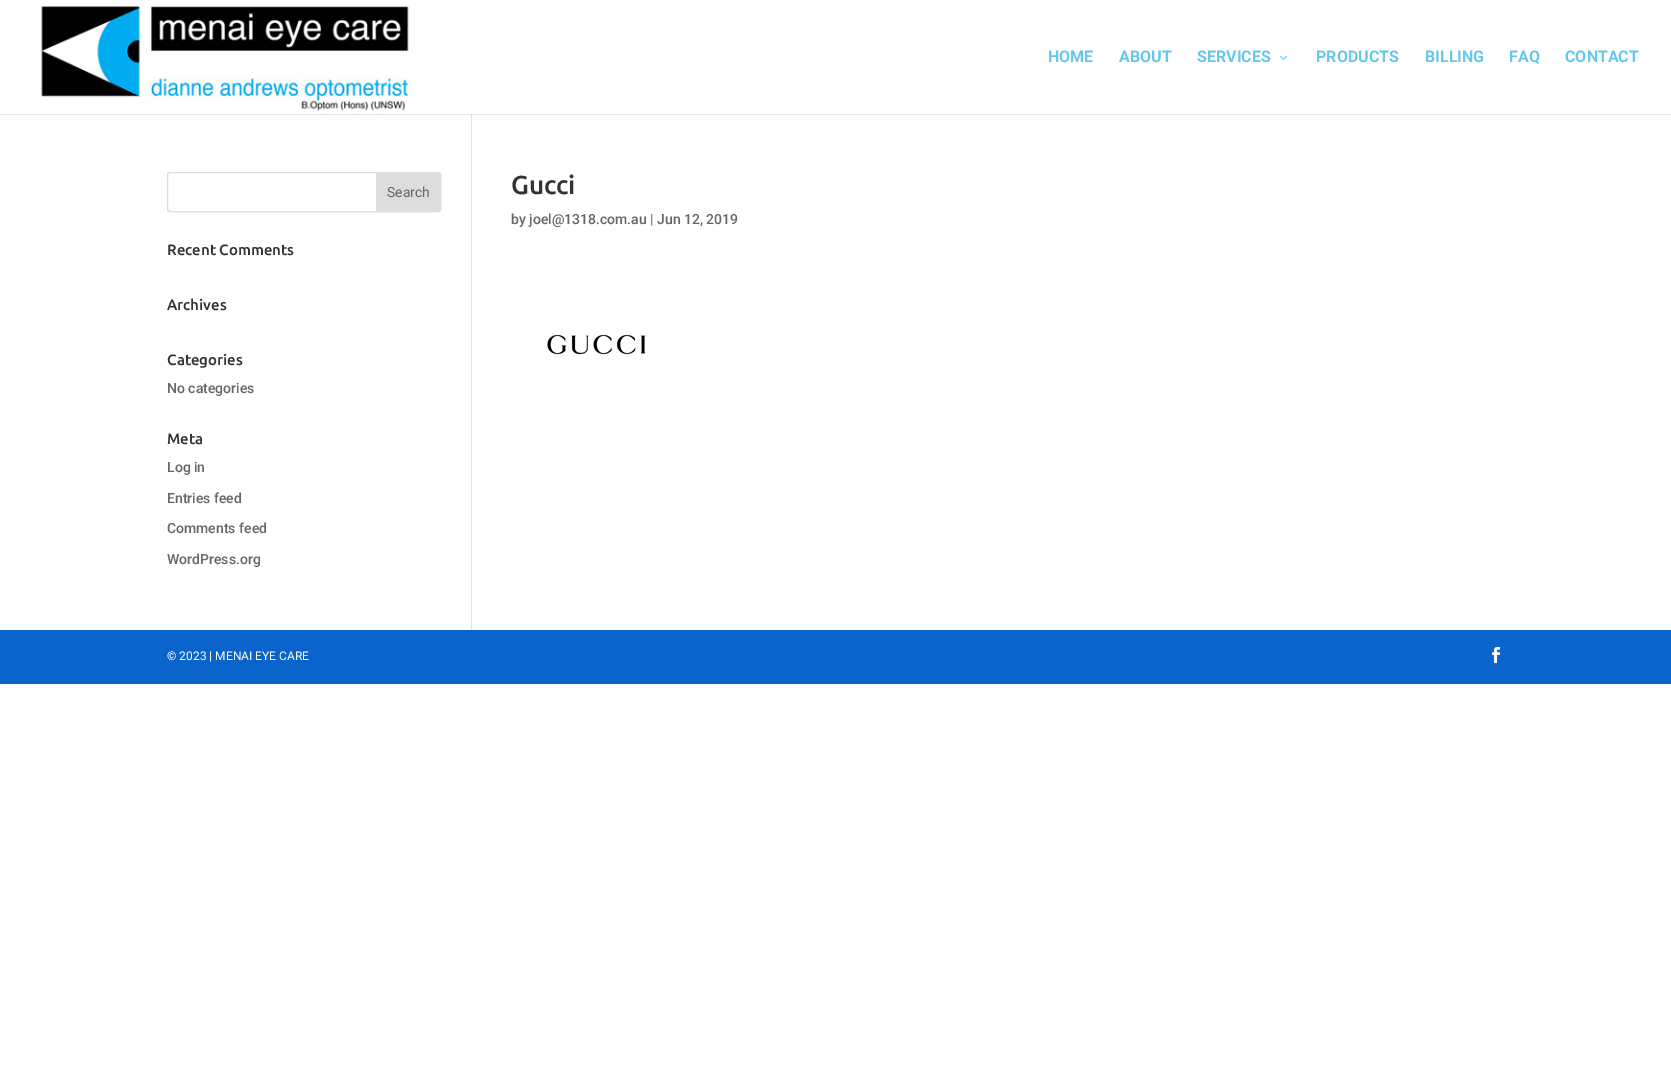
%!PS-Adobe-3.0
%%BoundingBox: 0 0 1671 1066
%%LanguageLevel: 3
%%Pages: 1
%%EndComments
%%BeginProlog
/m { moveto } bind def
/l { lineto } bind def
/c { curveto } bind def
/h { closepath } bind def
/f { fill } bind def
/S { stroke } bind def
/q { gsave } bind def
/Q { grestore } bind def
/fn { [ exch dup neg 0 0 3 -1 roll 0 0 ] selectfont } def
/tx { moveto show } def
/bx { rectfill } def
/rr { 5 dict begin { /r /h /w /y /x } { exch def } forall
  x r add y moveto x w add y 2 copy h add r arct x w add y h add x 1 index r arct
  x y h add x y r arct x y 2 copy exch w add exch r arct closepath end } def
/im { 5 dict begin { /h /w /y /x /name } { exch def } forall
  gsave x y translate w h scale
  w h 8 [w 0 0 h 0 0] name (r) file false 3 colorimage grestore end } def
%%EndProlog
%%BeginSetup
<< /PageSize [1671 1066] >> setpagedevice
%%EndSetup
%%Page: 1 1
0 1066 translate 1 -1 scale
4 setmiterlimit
1 setgray
0 0 1671 1066 bx
0.902 setgray
0 114 1671 1 bx
(image0.raw) 40 5 369 109 im
/Roboto-Bold 16 fn
0.4 0.78 0.925 setrgbcolor
(HOME) 1048 62 tx
(ABOUT) 1119 62 tx
(SERVICES) 1197 62 tx
(image1.raw) 1279 55 9 5 im
(PRODUCTS) 1316 62 tx
(BILLING) 1425 62 tx
(FAQ) 1509 62 tx
(CONTACT) 1565 62 tx
0.886 setgray
471 114 1 516 bx
0.796 setgray
471 114 1 1 bx
0.867 setgray
167.5 172.5 273 39 2.5 rr S
376.5 172.5 m 438 172.5 l 439.5 172.5 440.5 173.5 440.5 175 c 440.5 209 l 440.5 210.5 439.5 211.5 438 211.5 c 376.5 211.5 l h q f Q
S
/Roboto-Regular 14 fn
0.4 setgray
(Search) 387 197 tx
/Ubuntu-Medium 15 fn
0.2 setgray
(Recent Comments) 167 255 tx
(Archives) 167 310 tx
(Categories) 167 365 tx
/Roboto-Medium 14 fn
0.4 setgray
(No categories) 167 393 tx
/Ubuntu-Medium 15 fn
0.2 setgray
(Meta) 167 444 tx
/Roboto-Medium 14 fn
0.4 setgray
(Log in) 167 472 tx
(Entries feed) 167 503 tx
(Comments feed) 167 533 tx
(WordPress.org) 167 564 tx
/Ubuntu-Medium 26 fn
0.2 setgray
(Gucci) 511 194 tx
/Roboto-Medium 14 fn
0.4 setgray
(by joel@1318.com.au | Jun 12, 2019) 511 224 tx
(image2.raw) 547 334 99 21 im
0.043 0.392 0.796 setrgbcolor
0 630 1671 54 bx
/Roboto-Regular 12 fn
1 setgray
(© 2023 | MENAI EYE CARE) 167 660 tx
(image3.raw) 1492 647 8 16 im
showpage
%%EOF
